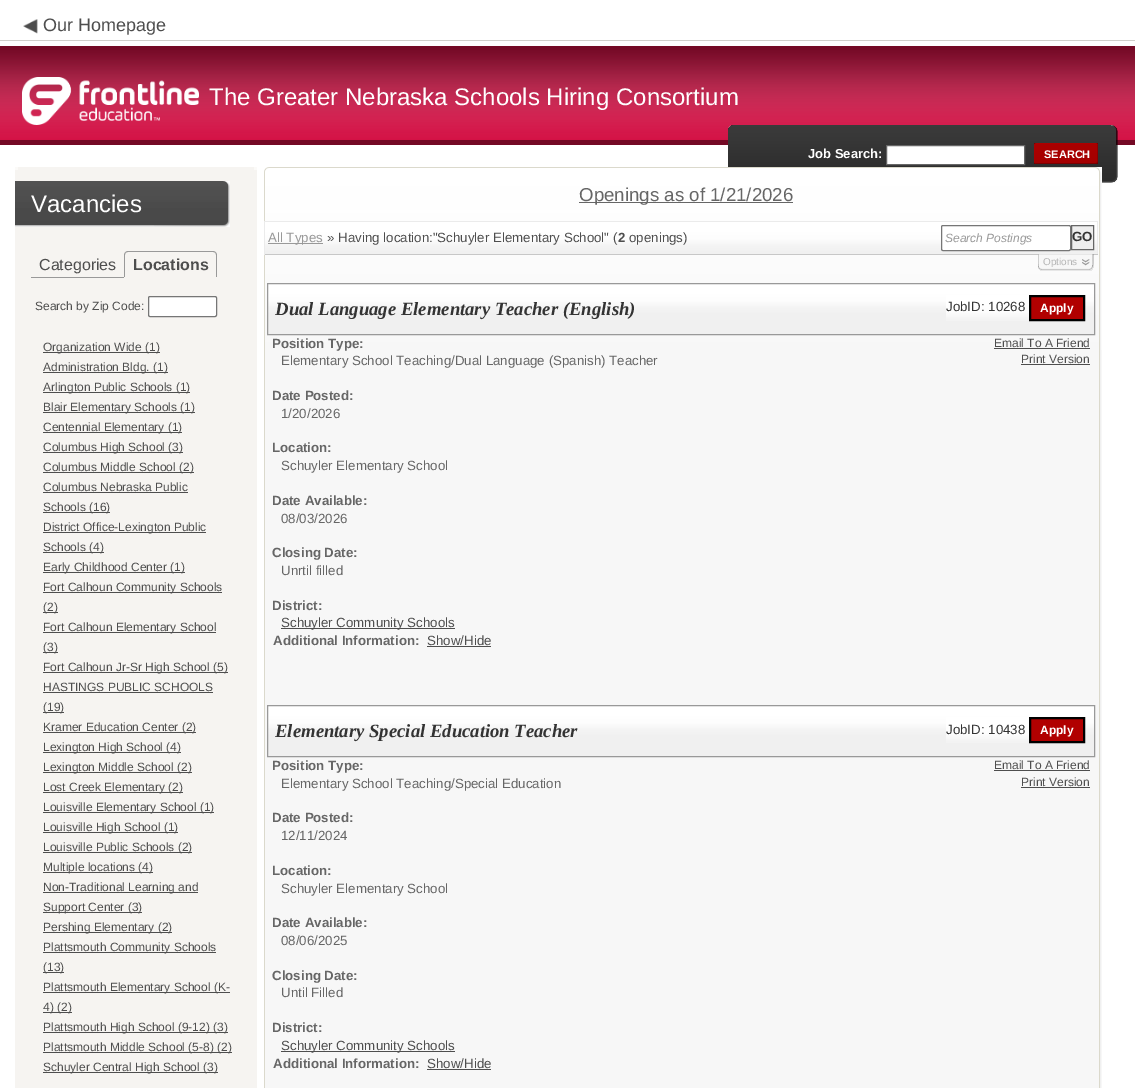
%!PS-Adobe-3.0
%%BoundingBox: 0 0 1135 1088
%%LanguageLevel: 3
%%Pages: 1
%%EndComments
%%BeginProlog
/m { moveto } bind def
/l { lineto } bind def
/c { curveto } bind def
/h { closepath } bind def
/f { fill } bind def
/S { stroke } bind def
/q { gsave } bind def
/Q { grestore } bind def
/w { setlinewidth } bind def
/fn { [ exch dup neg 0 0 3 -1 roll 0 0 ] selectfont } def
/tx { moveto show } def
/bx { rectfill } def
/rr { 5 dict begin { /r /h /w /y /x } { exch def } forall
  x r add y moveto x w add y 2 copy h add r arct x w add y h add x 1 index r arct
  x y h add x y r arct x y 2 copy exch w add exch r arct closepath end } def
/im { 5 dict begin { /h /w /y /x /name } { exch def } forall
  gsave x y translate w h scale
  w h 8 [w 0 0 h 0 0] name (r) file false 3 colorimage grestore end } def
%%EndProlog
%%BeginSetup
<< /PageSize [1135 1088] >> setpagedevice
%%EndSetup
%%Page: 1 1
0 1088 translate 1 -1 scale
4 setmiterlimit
1 setgray
0 0 1135 1088 bx
0.827 0.063 0.267 setrgbcolor
0 46 1135 99 bx
(image0.raw) 0 0 1135 145 im
(image1.raw) 23 19 15 15 im
/LiberationSans-Regular 18 fn
0.306 setgray
(Our Homepage) 43 31 tx
(image2.raw) 22 77 177 48 im
/LiberationSans-Regular 24 fn
1 setgray
(The Greater Nebraska Schools Hiring Consortium) 209 105 tx
(image3.raw) 735 125 376 58 im
(image4.raw) 1111 125 7 58 im
(image5.raw) 728 125 7 42 im
/LiberationSans-Bold 13 fn
(Job Search:) 808 158 tx
886.5 145.5 m 1024.5 145.5 l 1024.5 164.5 l 886.5 164.5 l h q f Q
0.4 setgray
S
(image6.raw) 1036 143 60 21 im
(image7.raw) 1096 143 2 21 im
(image8.raw) 1034 143 2 21 im
/LiberationSans-Bold 11 fn
1 setgray
(SEARCH) 1044 158 tx
0.965 0.957 0.945 setrgbcolor
15 167 242 921 bx
0.984 0.98 0.973 setrgbcolor
254 167 3 3 bx
15 167 3 3 bx
(image9.raw) 15 181 139 46 im
(image10.raw) 154 181 76 46 im
/LiberationSans-Regular 24 fn
1 setgray
(Vacancies) 31 212 tx
/LiberationSans-Regular 16 fn
0.306 setgray
(Categories) 39 270 tx
0.6 setgray
31 277 93 1 bx
128 251 m 213 251 l 215 251 217 253 217 255 c 217 277 l 124 277 l 124 255 l 124 253 126 251 128 251 c h 128 252 m 213 252 l 215 252 216 253 216 255 c 216 277 l 125 277 l 125 255 l 125 253 126 252 128 252 c h eofill
/LiberationSans-Bold 16 fn
0.306 setgray
(Locations) 133 270 tx
/LiberationSans-Regular 12 fn
(Search by Zip Code:) 35 310 tx
1 setgray
148.5 296.5 68 20 1.5 rr q f Q
0.463 setgray
S
0.306 setgray
43 352 117 1 bx
(Organization Wide \(1\)) 43 351 tx
43 372 125 1 bx
(Administration Bldg. \(1\)) 43 371 tx
43 392 147 1 bx
(Arlington Public Schools \(1\)) 43 391 tx
43 412 152 1 bx
(Blair Elementary Schools \(1\)) 43 411 tx
43 432 139 1 bx
(Centennial Elementary \(1\)) 43 431 tx
43 452 140 1 bx
(Columbus High School \(3\)) 43 451 tx
43 472 151 1 bx
(Columbus Middle School \(2\)) 43 471 tx
(Columbus Nebraska Public) 43 491 tx
43 492 145 1 bx
43 512 67 1 bx
(Schools \(16\)) 43 511 tx
43 532 163 1 bx
(District Office-Lexington Public) 43 531 tx
43 552 61 1 bx
(Schools \(4\)) 43 551 tx
43 572 142 1 bx
(Early Childhood Center \(1\)) 43 571 tx
43 592 179 1 bx
(Fort Calhoun Community Schools) 43 591 tx
43 612 15 1 bx
(\(2\)) 43 611 tx
43 632 173 1 bx
(Fort Calhoun Elementary School) 43 631 tx
43 652 15 1 bx
(\(3\)) 43 651 tx
43 672 185 1 bx
(Fort Calhoun Jr-Sr High School \(5\)) 43 671 tx
(HASTINGS PUBLIC SCHOOLS) 43 691 tx
43 692 170 1 bx
43 712 21 1 bx
(\(19\)) 43 711 tx
43 732 153 1 bx
(Kramer Education Center \(2\)) 43 731 tx
43 752 138 1 bx
(Lexington High School \(4\)) 43 751 tx
43 772 149 1 bx
(Lexington Middle School \(2\)) 43 771 tx
43 792 140 1 bx
(Lost Creek Elementary \(2\)) 43 791 tx
43 812 171 1 bx
(Louisville Elementary School \(1\)) 43 811 tx
43 832 135 1 bx
(Louisville High School \(1\)) 43 831 tx
43 852 149 1 bx
(Louisville Public Schools \(2\)) 43 851 tx
43 872 110 1 bx
(Multiple locations \(4\)) 43 871 tx
43 892 155 1 bx
(Non-Traditional Learning and) 43 891 tx
43 912 99 1 bx
(Support Center \(3\)) 43 911 tx
43 932 129 1 bx
(Pershing Elementary \(2\)) 43 931 tx
43 952 173 1 bx
(Plattsmouth Community Schools) 43 951 tx
43 972 21 1 bx
(\(13\)) 43 971 tx
43 992 187 1 bx
(Plattsmouth Elementary School \(K-) 43 991 tx
43 1012 29 1 bx
(4\) \(2\)) 43 1011 tx
43 1032 185 1 bx
(Plattsmouth High School \(9-12\) \(3\)) 43 1031 tx
43 1052 189 1 bx
(Plattsmouth Middle School \(5-8\) \(2\)) 43 1051 tx
43 1072 175 1 bx
(Schuyler Central High School \(3\)) 43 1071 tx
0.969 setgray
265 350 837 738 bx
(image11.raw) 1099 350 2 738 im
0.859 0.851 0.8 setrgbcolor
264 350 1 738 bx
(image12.raw) 269 167 826 183 im
(image13.raw) 1095 167 7 183 im
(image14.raw) 264 167 5 183 im
0.4 setgray
579 202 214 1 bx
/LiberationSans-Regular 18.7 fn
(Openings as of 1/21/2026) 579 201 tx
(image15.raw) 265 222 832 32 im
0.922 setgray
264 221 834 1 bx
1097 221 1 34 bx
0.78 setgray
264 254 834 1 bx
0.922 setgray
264 221 1 34 bx
0.6 setgray
268 243 55 1 bx
/LiberationSans-Regular 13.3 fn
(All Types) 268 242 tx
0.306 setgray
(» Having location:"Schuyler Elementary School" \() 327 242 tx
/LiberationSans-Bold 13.3 fn
(2) 618 242 tx
/LiberationSans-Regular 13.3 fn
(openings\)) 629 242 tx
1 setgray
941.5 225.5 129 25 1.5 rr q f Q
0.463 setgray
S
/LiberationSans-Italic 12 fn
0.6 setgray
(Search Postings) 945 242 tx
0.933 setgray
1071.5 225.5 m 1093.5 225.5 l 1093.5 249.5 l 1071.5 249.5 l h q f Q
0.4 setgray
S
/LiberationSans-Bold 13.3 fn
0.2 setgray
(GO) 1072 241 tx
(image16.raw) 1038 254 56 17 im
/LiberationSans-Regular 10 fn
0.71 setgray
(Options) 1043 265 tx
(image17.raw) 268 284 826 50 im
0.6 setgray
267.5 283.5 827 51 rectstroke
/LiberationSerif-BoldItalic 18.7 fn
0.2 setgray
(Dual Language Elementary Teacher \(English\)) 275 315 tx
(image18.raw) 946 295 83 26 im
/LiberationSans-Regular 13.3 fn
(JobID: 10268) 946 311 tx
0.694 0 0 setrgbcolor
1030 296 m 1084 296 l 1084 320 l 1030 320 l h q f Q
0 setgray
2 w
S
/LiberationSans-Bold 12 fn
1 setgray
(Apply) 1040 312 tx
/LiberationSans-Bold 13.3 fn
0.4 setgray
(Position Type:) 272 348 tx
/LiberationSans-Regular 13.3 fn
(Elementary School Teaching/Dual Language \(Spanish\) Teacher) 281 365 tx
/LiberationSans-Regular 12 fn
0.306 setgray
(Email To A Friend) 994 347 tx
994 348 96 1 bx
(Print Version) 1021 363 tx
1021 364 69 1 bx
/LiberationSans-Bold 13.3 fn
0.4 setgray
(Date Posted:) 272 400 tx
/LiberationSans-Regular 13.3 fn
(1/20/2026) 281 418 tx
/LiberationSans-Bold 13.3 fn
(Location:) 272 452 tx
/LiberationSans-Regular 13.3 fn
(Schuyler Elementary School) 281 470 tx
/LiberationSans-Bold 13.3 fn
(Date Available:) 272 505 tx
/LiberationSans-Regular 13.3 fn
(08/03/2026) 281 523 tx
/LiberationSans-Bold 13.3 fn
(Closing Date:) 272 557 tx
/LiberationSans-Regular 13.3 fn
(Unrtil filled) 281 575 tx
/LiberationSans-Bold 13.3 fn
(District:) 272 610 tx
0.306 setgray
281 628 174 1 bx
/LiberationSans-Regular 13.3 fn
(Schuyler Community Schools) 281 627 tx
/LiberationSans-Bold 13.3 fn
0.4 setgray
(Additional Information:) 273 645 tx
/LiberationSans-Regular 13.3 fn
0.306 setgray
(Show/Hide) 427 645 tx
427 646 64 1 bx
(image17.raw) 268 706 826 50 im
0.6 setgray
1 w
267.5 705.5 827 51 rectstroke
/LiberationSerif-BoldItalic 18.7 fn
0.2 setgray
(Elementary Special Education Teacher) 275 737 tx
(image18.raw) 946 717 83 26 im
/LiberationSans-Regular 13.3 fn
(JobID: 10438) 946 734 tx
0.694 0 0 setrgbcolor
1030 718 m 1084 718 l 1084 742 l 1030 742 l h q f Q
0 setgray
2 w
S
/LiberationSans-Bold 12 fn
1 setgray
(Apply) 1040 734 tx
/LiberationSans-Bold 13.3 fn
0.4 setgray
(Position Type:) 272 770 tx
/LiberationSans-Regular 13.3 fn
(Elementary School Teaching/Special Education) 281 788 tx
/LiberationSans-Regular 12 fn
0.306 setgray
(Email To A Friend) 994 769 tx
994 770 96 1 bx
(Print Version) 1021 786 tx
1021 787 69 1 bx
/LiberationSans-Bold 13.3 fn
0.4 setgray
(Date Posted:) 272 822 tx
/LiberationSans-Regular 13.3 fn
(12/11/2024) 281 840 tx
/LiberationSans-Bold 13.3 fn
(Location:) 272 875 tx
/LiberationSans-Regular 13.3 fn
(Schuyler Elementary School) 281 893 tx
/LiberationSans-Bold 13.3 fn
(Date Available:) 272 927 tx
/LiberationSans-Regular 13.3 fn
(08/06/2025) 281 945 tx
/LiberationSans-Bold 13.3 fn
(Closing Date:) 272 980 tx
/LiberationSans-Regular 13.3 fn
(Until Filled) 281 997 tx
/LiberationSans-Bold 13.3 fn
(District:) 272 1032 tx
0.306 setgray
281 1051 174 1 bx
/LiberationSans-Regular 13.3 fn
(Schuyler Community Schools) 281 1050 tx
/LiberationSans-Bold 13.3 fn
0.4 setgray
(Additional Information:) 273 1068 tx
/LiberationSans-Regular 13.3 fn
0.306 setgray
(Show/Hide) 427 1068 tx
427 1069 64 1 bx
showpage
%%EOF
